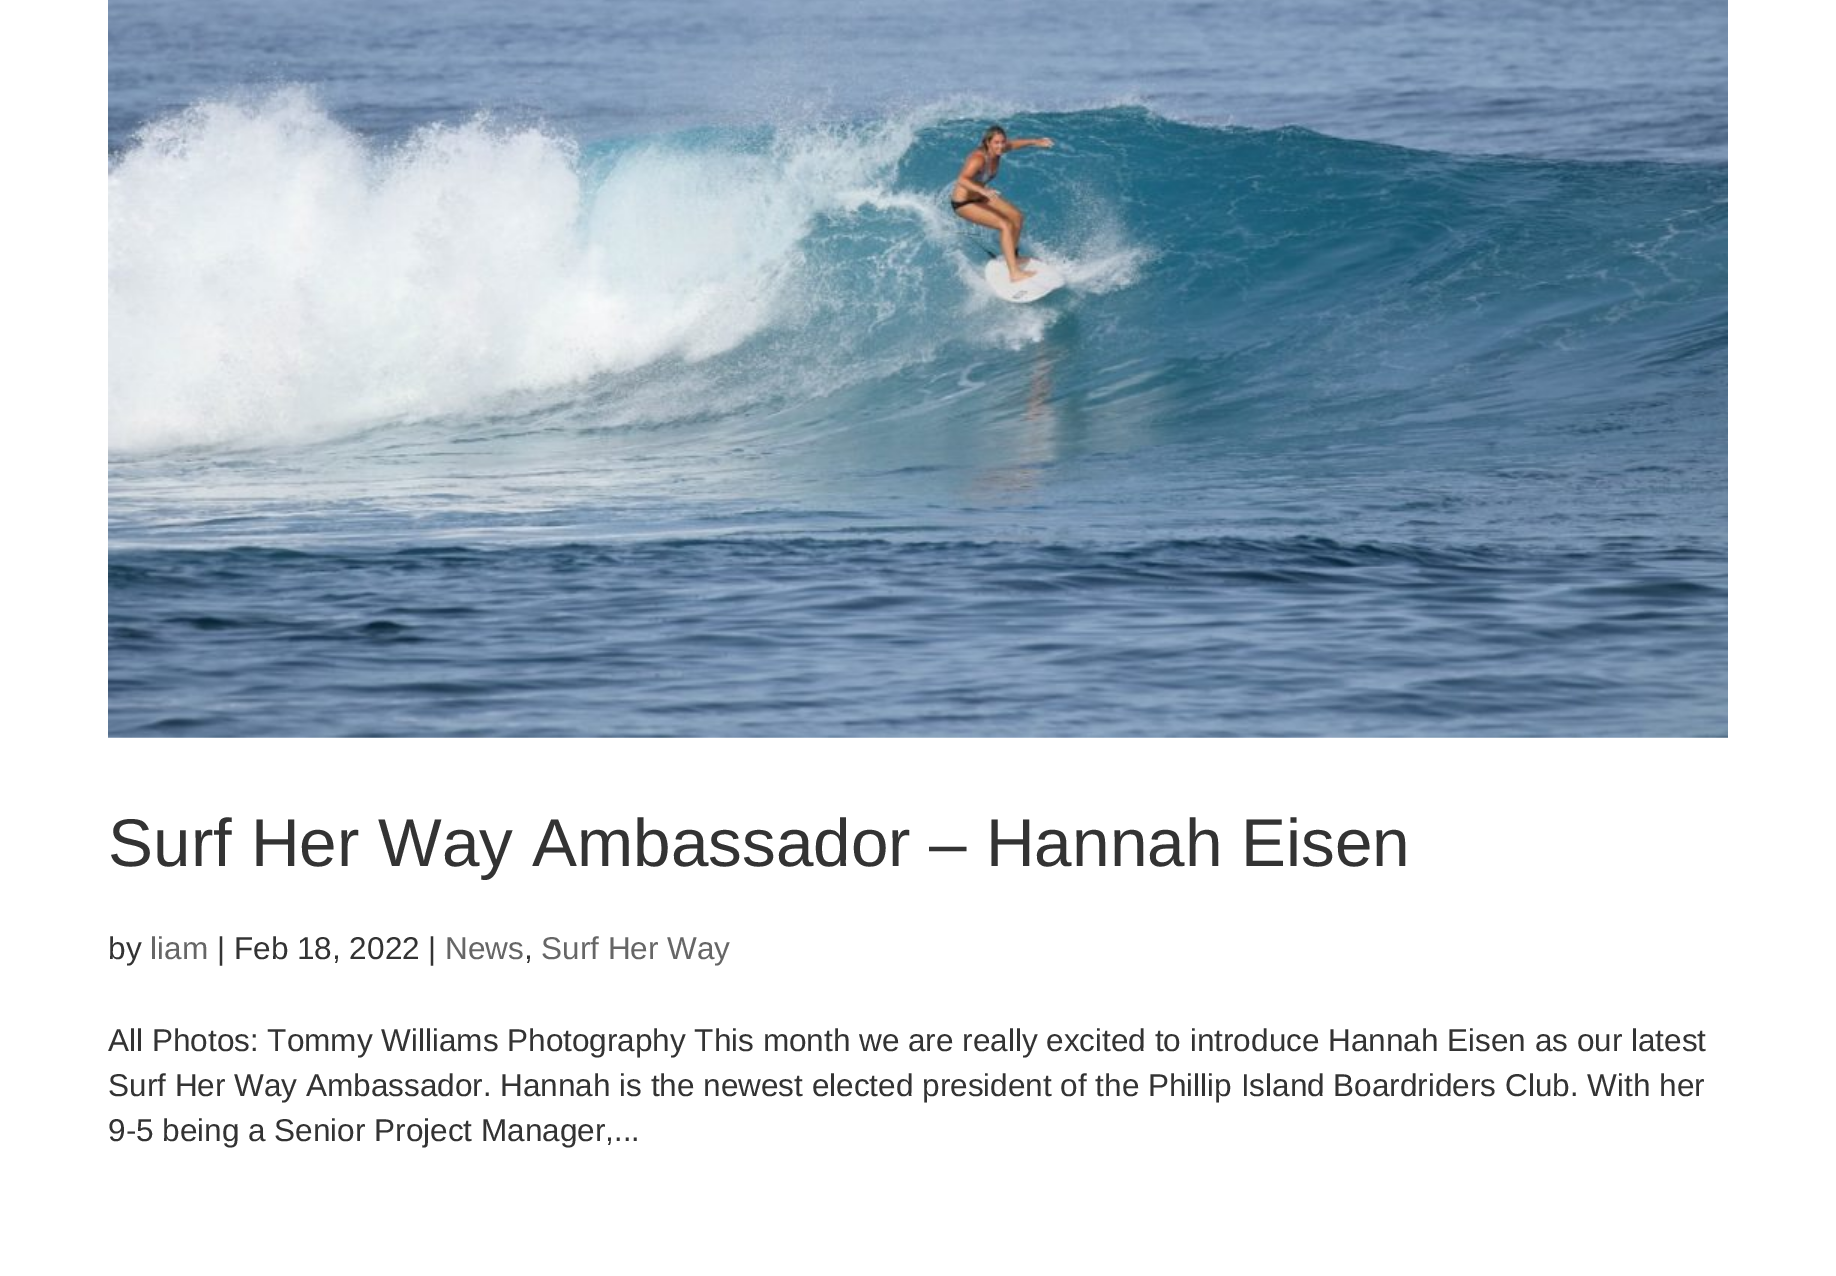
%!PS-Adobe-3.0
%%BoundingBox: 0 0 1836 1276
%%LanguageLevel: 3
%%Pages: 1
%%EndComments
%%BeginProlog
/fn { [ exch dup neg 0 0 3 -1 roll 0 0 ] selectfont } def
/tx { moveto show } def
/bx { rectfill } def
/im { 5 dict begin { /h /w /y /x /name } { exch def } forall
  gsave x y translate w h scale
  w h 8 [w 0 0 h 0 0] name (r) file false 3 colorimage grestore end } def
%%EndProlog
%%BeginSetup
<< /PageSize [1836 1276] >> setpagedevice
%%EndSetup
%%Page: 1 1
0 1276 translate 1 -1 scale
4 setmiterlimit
1 setgray
0 0 1836 1276 bx
(image0.raw) 108 0 1620 738 im
/LiberationSans-Regular 67.5 fn
0.2 setgray
(Surf Her Way Ambassador – Hannah Eisen) 108 866 tx
/LiberationSans-Regular 31.5 fn
(by) 108 959 tx
0.4 setgray
(liam) 150 959 tx
0.2 setgray
(| Feb 18, 2022 |) 217 959 tx
0.4 setgray
(News) 445 959 tx
0.2 setgray
(,) 524 959 tx
0.4 setgray
(Surf Her Way) 541 959 tx
0.2 setgray
(All Photos: Tommy Williams Photography This month we are really excited to introduce Hannah Eisen as our latest) 108 1051 tx
(Surf Her Way Ambassador. Hannah is the newest elected president of the Phillip Island Boardriders Club. With her) 108 1096 tx
(9-5 being a Senior Project Manager,...) 108 1141 tx
showpage
%%EOF
